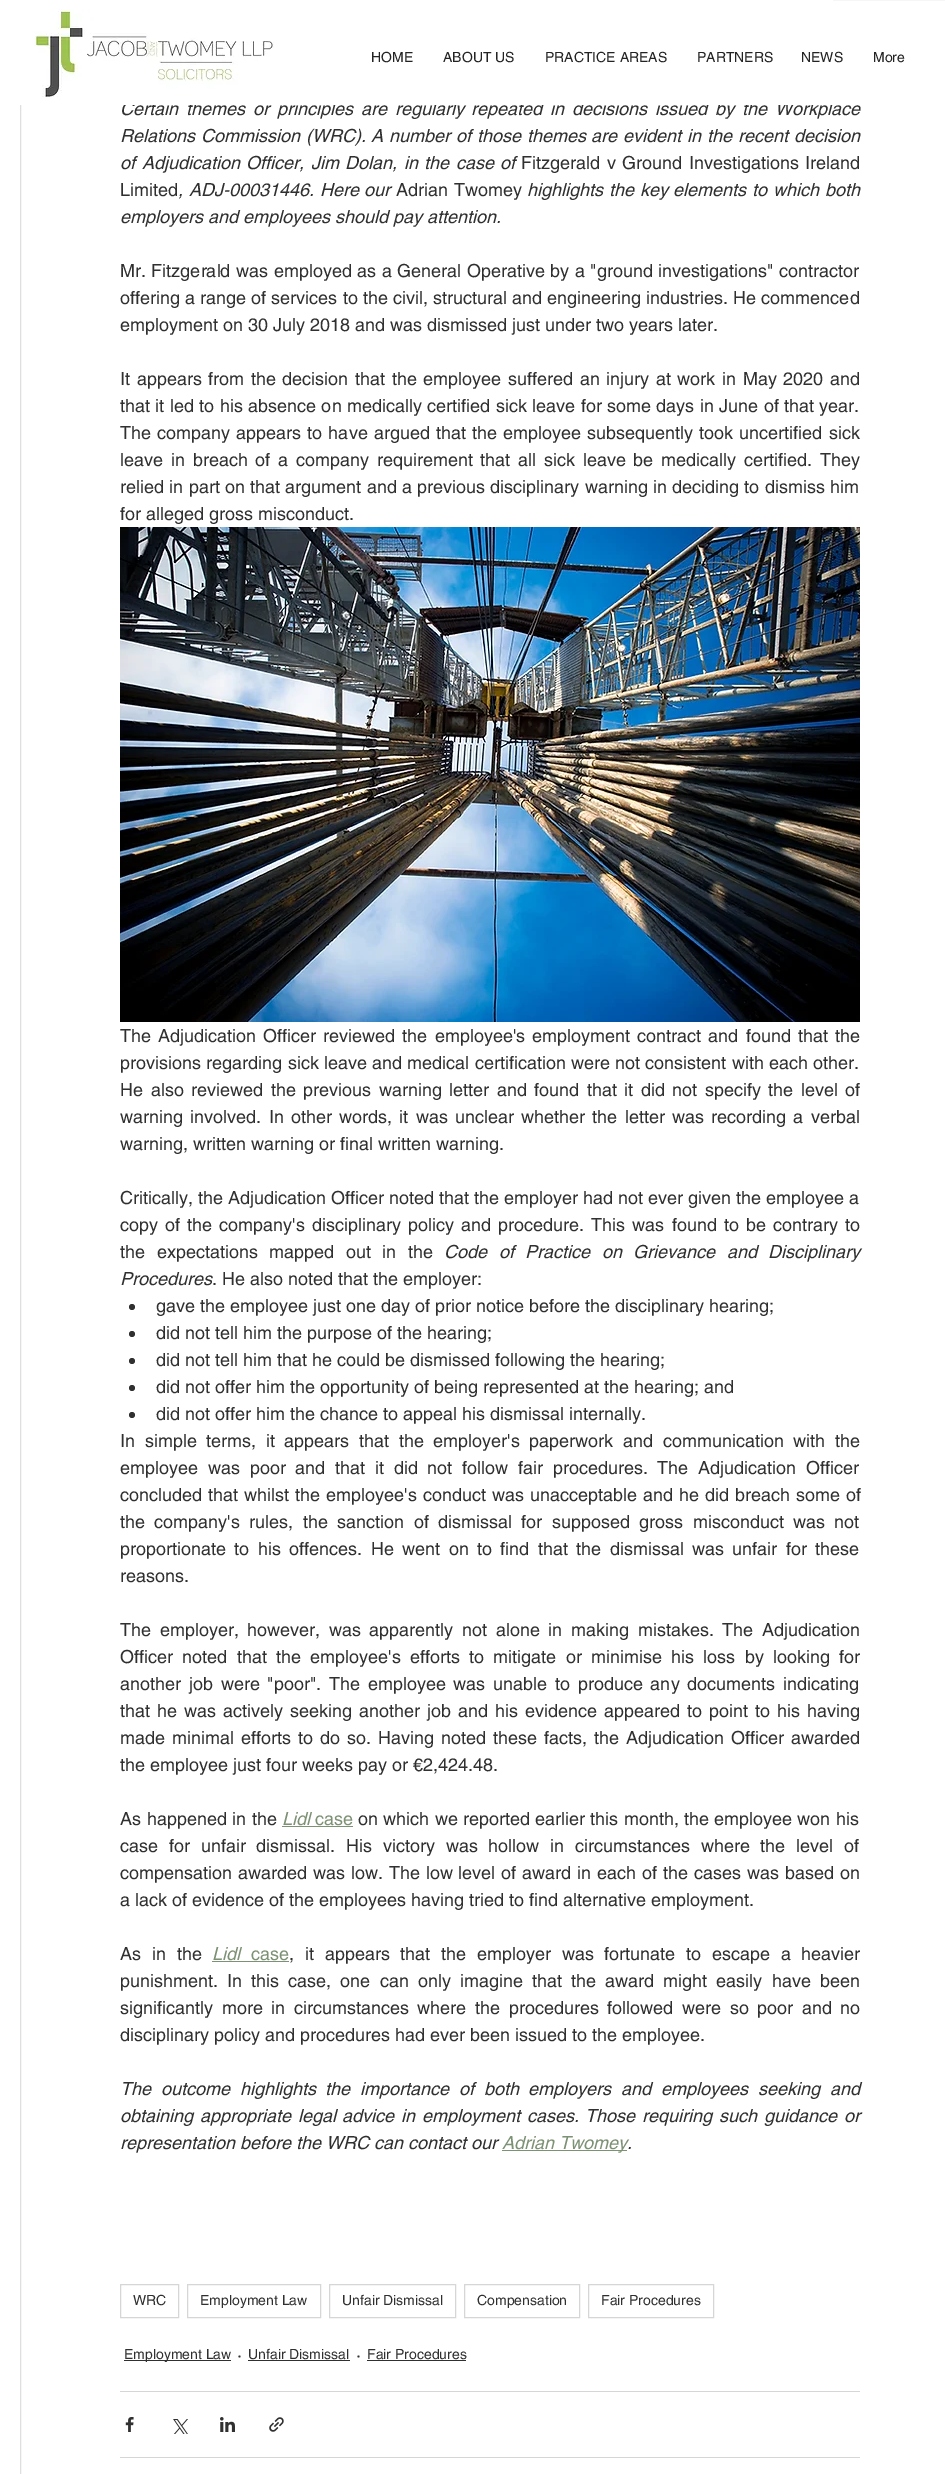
%!PS-Adobe-3.0
%%BoundingBox: 0 0 945 2474
%%LanguageLevel: 3
%%Pages: 1
%%EndComments
%%BeginProlog
/m { moveto } bind def
/f { fill } bind def
/fn { [ exch dup neg 0 0 3 -1 roll 0 0 ] selectfont } def
/tx { moveto show } def
/bx { rectfill } def
/ci { newpath 0 360 arc closepath } def
/im { 5 dict begin { /h /w /y /x /name } { exch def } forall
  gsave x y translate w h scale
  w h 8 [w 0 0 h 0 0] name (r) file false 3 colorimage grestore end } def
%%EndProlog
%%BeginSetup
<< /PageSize [945 2474] >> setpagedevice
%%EndSetup
%%Page: 1 1
0 2474 translate 1 -1 scale
4 setmiterlimit
1 setgray
0 0 945 2474 bx
0.875 setgray
20.5 -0.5 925 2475 rectstroke
/helvetica-Italic 18 fn
0.188 setgray
120 115 m 2.9 0 32 (Certain themes or principles are regularly repeated in decisions issued by the Workplace) widthshow
1 setgray
20 0 813 105 bx
(image0.raw) 34 9 240 88 im
/helvetica-Regular 14 fn
0.141 0.137 0.137 setrgbcolor
(HOME) 371 62 tx
(ABOUT US) 443 62 tx
(PRACTICE AREAS) 545 62 tx
(PARTNERS) 697 62 tx
(NEWS) 801 62 tx
(More) 873 62 tx
/helvetica-Italic 18 fn
0.188 setgray
120 142 m 0.8 0 32 (Relations Commission \(WRC\). A number of those themes are evident in the recent decision) widthshow
120 169 m 1.5 0 32 (of Adjudication Officer, Jim Dolan, in the case of) widthshow
/helvetica-Regular 18 fn
521 169 m 1.5 0 32 (Fitzgerald v Ground Investigations Ireland) widthshow
(Limited) 120 196 tx
/helvetica-Italic 18 fn
178 196 m 0.75 0 32 (, ADJ-00031446. Here our) widthshow
/helvetica-Regular 18 fn
396 196 m 0.75 0 32 (Adrian Twomey) widthshow
/helvetica-Italic 18 fn
527 196 m 0.75 0 32 (highlights the key elements to which both) widthshow
(employers and employees should pay attention.) 120 223 tx
/helvetica-Regular 18 fn
120 277 m 0.5 0 32 (Mr. Fitzgerald was employed as a General Operative by a "ground investigations" contractor) widthshow
120 304 m 0.1 0 32 (offering a range of services to the civil, structural and engineering industries. He commenced) widthshow
(employment on 30 July 2018 and was dismissed just under two years later.) 120 331 tx
120 385 m 1.6 0 32 (It appears from the decision that the employee suffered an injury at work in May 2020 and) widthshow
120 412 m 0.4 0 32 (that it led to his absence on medically certified sick leave for some days in June of that year.) widthshow
120 439 m 1.1 0 32 (The company appears to have argued that the employee subsequently took uncertified sick) widthshow
120 466 m 2.75 0 32 (leave in breach of a company requirement that all sick leave be medically certified. They) widthshow
120 493 m 0.25 0 32 (relied in part on that argument and a previous disciplinary warning in deciding to dismiss him) widthshow
(for alleged gross misconduct.) 120 520 tx
(image1.raw) 120 527 740 495 im
120 1042 m 2.1 0 32 (The Adjudication Officer reviewed the employee's employment contract and found that the) widthshow
120 1069 m 0.25 0 32 (provisions regarding sick leave and medical certification were not consistent with each other.) widthshow
120 1096 m 2.5 0 32 (He also reviewed the previous warning letter and found that it did not specify the level of) widthshow
120 1123 m 2.25 0 32 (warning involved. In other words, it was unclear whether the letter was recording a verbal) widthshow
(warning, written warning or final written warning.) 120 1150 tx
(Critically, the Adjudication Officer noted that the employer had not ever given the employee a) 120 1204 tx
120 1231 m 2.1 0 32 (copy of the company's disciplinary policy and procedure. This was found to be contrary to) widthshow
120 1258 m 6.5 0 32 (the expectations mapped out in the) widthshow
/helvetica-Italic 18 fn
444 1258 m 6.5 0 32 (Code of Practice on Grievance and Disciplinary) widthshow
(Procedures) 120 1285 tx
/helvetica-Regular 18 fn
(. He also noted that the employer:) 212 1285 tx
132 1307 3 ci f
(gave the employee just one day of prior notice before the disciplinary hearing;) 156 1312 tx
132 1334 3 ci f
(did not tell him the purpose of the hearing;) 156 1339 tx
132 1361 3 ci f
(did not tell him that he could be dismissed following the hearing;) 156 1366 tx
132 1388 3 ci f
(did not offer him the opportunity of being represented at the hearing; and) 156 1393 tx
132 1415 3 ci f
(did not offer him the chance to appeal his dismissal internally.) 156 1420 tx
120 1447 m 4.6 0 32 (In simple terms, it appears that the employer's paperwork and communication with the) widthshow
120 1474 m 4.75 0 32 (employee was poor and that it did not follow fair procedures. The Adjudication Officer) widthshow
120 1501 m 1 0 32 (concluded that whilst the employee's conduct was unacceptable and he did breach some of) widthshow
120 1528 m 4.4 0 32 (the company's rules, the sanction of dismissal for supposed gross misconduct was not) widthshow
120 1555 m 3.4 0 32 (proportionate to his offences. He went on to find that the dismissal was unfair for these) widthshow
(reasons.) 120 1582 tx
120 1636 m 3.6 0 32 (The employer, however, was apparently not alone in making mistakes. The Adjudication) widthshow
120 1663 m 4.25 0 32 (Officer noted that the employee's efforts to mitigate or minimise his loss by looking for) widthshow
120 1690 m 2.75 0 32 (another job were "poor". The employee was unable to produce any documents indicating) widthshow
120 1717 m 2 0 32 (that he was actively seeking another job and his evidence appeared to point to his having) widthshow
120 1744 m 2 0 32 (made minimal efforts to do so. Having noted these facts, the Adjudication Officer awarded) widthshow
(the employee just four weeks pay or €2,424.48.) 120 1771 tx
120 1825 m 0.5 0 32 (As happened in the) widthshow
/helvetica-Italic 18 fn
0.49 0.569 0.455 setrgbcolor
(Lidl) 282 1825 tx
282 1826 71 1 bx
/helvetica-Regular 18 fn
(case) 315 1825 tx
0.188 setgray
358 1825 m 0.25 0 32 (on which we reported earlier this month, the employee won his) widthshow
120 1852 m 5.75 0 32 (case for unfair dismissal. His victory was hollow in circumstances where the level of) widthshow
120 1879 m 0.9 0 32 (compensation awarded was low. The low level of award in each of the cases was based on) widthshow
(a lack of evidence of the employees having tried to find alternative employment.) 120 1906 tx
120 1960 m 5.75 0 32 (As in the) widthshow
/helvetica-Italic 18 fn
0.49 0.569 0.455 setrgbcolor
(Lidl) 212 1960 tx
212 1961 77 1 bx
/helvetica-Regular 18 fn
(case) 251 1960 tx
0.188 setgray
289 1960 m 5.75 0 32 (, it appears that the employer was fortunate to escape a heavier) widthshow
120 1987 m 4.1 0 32 (punishment. In this case, one can only imagine that the award might easily have been) widthshow
120 2014 m 3.6 0 32 (significantly more in circumstances where the procedures followed were so poor and no) widthshow
(disciplinary policy and procedures had ever been issued to the employee.) 120 2041 tx
/helvetica-Italic 18 fn
120 2095 m 4.75 0 32 (The outcome highlights the importance of both employers and employees seeking and) widthshow
120 2122 m 1.75 0 32 (obtaining appropriate legal advice in employment cases. Those requiring such guidance or) widthshow
(representation before the WRC can contact our) 120 2149 tx
0.49 0.569 0.455 setrgbcolor
502 2150 125 1 bx
(Adrian Twomey) 502 2149 tx
0.188 setgray
(.) 627 2149 tx
0.839 setgray
120.5 2284.5 58 33 rectstroke
/helvetica-Regular 14 fn
0.188 setgray
(WRC) 133 2305 tx
0.839 setgray
187.5 2284.5 133 33 rectstroke
0.188 setgray
(Employment Law) 200 2305 tx
0.839 setgray
329.5 2284.5 126 33 rectstroke
0.188 setgray
(Unfair Dismissal) 342 2305 tx
0.839 setgray
464.5 2284.5 115 33 rectstroke
0.188 setgray
(Compensation) 477 2305 tx
0.839 setgray
588.5 2284.5 125 33 rectstroke
0.188 setgray
(Fair Procedures) 601 2305 tx
124 2360 107 1 bx
(Employment Law) 124 2359 tx
/helvetica-Regular 18 fn
(·) 237 2361 tx
/helvetica-Regular 14 fn
(Unfair Dismissal) 248 2359 tx
248 2360 102 1 bx
/helvetica-Regular 18 fn
(·) 356 2361 tx
/helvetica-Regular 14 fn
(Fair Procedures) 367 2359 tx
367 2360 99 1 bx
0.839 setgray
120 2391 740 1 bx
(image2.raw) 125 2417 9 15 im
(image3.raw) 173 2419 15 15 im
(image4.raw) 220 2417 15 15 im
(image5.raw) 269 2417 15 15 im
120 2457 740 1 bx
showpage
%%EOF
